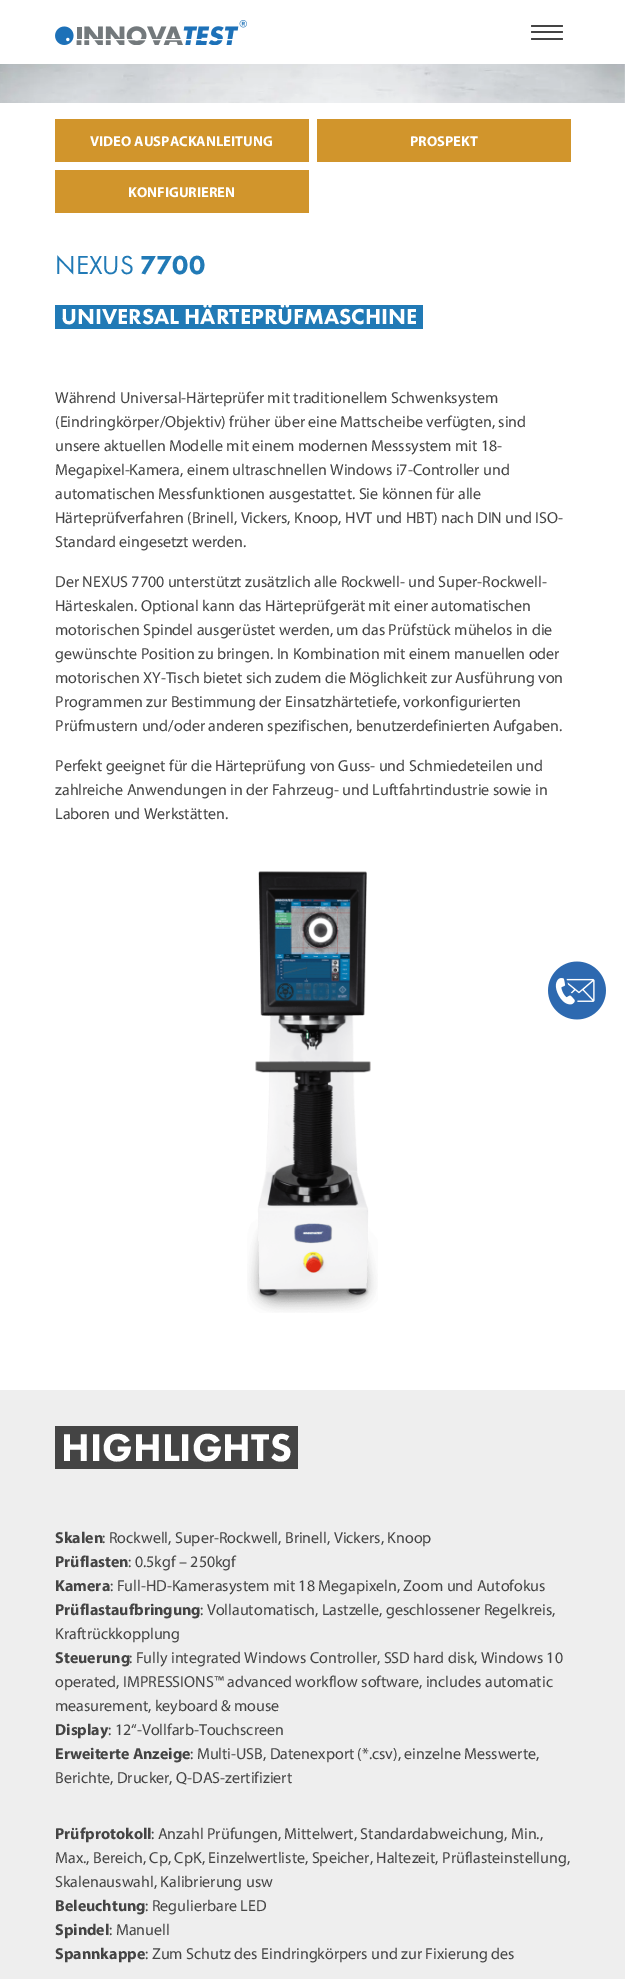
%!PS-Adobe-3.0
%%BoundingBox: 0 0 625 1979
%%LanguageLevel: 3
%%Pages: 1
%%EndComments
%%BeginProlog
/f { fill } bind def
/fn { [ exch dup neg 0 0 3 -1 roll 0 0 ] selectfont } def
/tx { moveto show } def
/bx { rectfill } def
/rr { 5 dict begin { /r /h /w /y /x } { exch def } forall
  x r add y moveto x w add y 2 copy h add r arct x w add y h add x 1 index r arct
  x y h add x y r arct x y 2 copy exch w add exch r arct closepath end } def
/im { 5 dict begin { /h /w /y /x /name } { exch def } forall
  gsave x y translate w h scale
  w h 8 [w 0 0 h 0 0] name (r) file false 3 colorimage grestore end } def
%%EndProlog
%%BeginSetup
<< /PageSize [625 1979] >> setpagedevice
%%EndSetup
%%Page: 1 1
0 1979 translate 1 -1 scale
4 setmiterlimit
1 setgray
0 0 625 1979 bx
(image0.raw) 55 20 192 25 im
0.267 setgray
531 31 32 2 1 rr f
531 25 32 2 1 rr f
531 38 32 2 1 rr f
(image1.raw) 0 64 625 39 im
0.82 0.584 0.173 setrgbcolor
55 119 254 43 bx
/Myriad-Bold 14.4 fn
1 setgray
(VIDEO AUSPACKANLEITUNG) 90 146 tx
0.82 0.584 0.173 setrgbcolor
317 119 254 43 bx
1 setgray
(PROSPEKT) 410 146 tx
0.82 0.584 0.173 setrgbcolor
55 170 254 43 bx
1 setgray
(KONFIGURIEREN) 128 197 tx
/FuturaPT-Regular 27 fn
0.129 0.478 0.714 setrgbcolor
(NEXUS) 55 274 tx
/FuturaPT-Black 27 fn
(7700) 140 274 tx
55 305 368 24 bx
/FuturaPT-Black 22.4 fn
1 setgray
(UNIVERSAL HÄRTEPRÜFMASCHINE) 61 324 tx
/Myriad-Regular 16 fn
0.267 setgray
(Während Universal-Härteprüfer mit traditionellem Schwenksystem) 55 403 tx
(\(Eindringkörper/Objektiv\) früher über eine Mattscheibe verfügten, sind) 55 427 tx
(unsere aktuellen Modelle mit einem modernen Messsystem mit 18-) 55 451 tx
(Megapixel-Kamera, einem ultraschnellen Windows i7-Controller und) 55 475 tx
(automatischen Messfunktionen ausgestattet. Sie können für alle) 55 499 tx
(Härteprüfverfahren \(Brinell, Vickers, Knoop, HVT und HBT\) nach DIN und ISO-) 55 523 tx
(Standard eingesetzt werden.) 55 547 tx
(Der NEXUS 7700 unterstützt zusätzlich alle Rockwell- und Super-Rockwell-) 55 587 tx
(Härteskalen. Optional kann das Härteprüfgerät mit einer automatischen) 55 611 tx
(motorischen Spindel ausgerüstet werden, um das Prüfstück mühelos in die) 55 635 tx
(gewünschte Position zu bringen. In Kombination mit einem manuellen oder) 55 659 tx
(motorischen XY-Tisch bietet sich zudem die Möglichkeit zur Ausführung von) 55 683 tx
(Programmen zur Bestimmung der Einsatzhärtetiefe, vorkonfigurierten) 55 707 tx
(Prüfmustern und/oder anderen spezifischen, benutzerdefinierten Aufgaben.) 55 731 tx
(Perfekt geeignet für die Härteprüfung von Guss- und Schmiedeteilen und) 55 771 tx
(zahlreiche Anwendungen in der Fahrzeug- und Luftfahrtindustrie sowie in) 55 795 tx
(Laboren und Werkstätten.) 55 819 tx
(image2.raw) 247 871 131 442 im
0.933 setgray
0 1390 625 589 bx
0.267 setgray
55 1426 243 43 bx
/FuturaPT-Black 40 fn
1 setgray
(HIGHLIGHTS) 61 1461 tx
/Myriad-Bold 16 fn
0.267 setgray
(Skalen) 55 1543 tx
/Myriad-Regular 16 fn
(: Rockwell, Super-Rockwell, Brinell, Vickers, Knoop) 102 1543 tx
/Myriad-Bold 16 fn
(Prüflasten) 55 1567 tx
/Myriad-Regular 16 fn
(: 0.5kgf – 250kgf) 128 1567 tx
/Myriad-Bold 16 fn
(Kamera) 55 1591 tx
/Myriad-Regular 16 fn
(: Full-HD-Kamerasystem mit 18 Megapixeln, Zoom und Autofokus) 110 1591 tx
/Myriad-Bold 16 fn
(Prüflastaufbringung) 55 1615 tx
/Myriad-Regular 16 fn
(: Vollautomatisch, Lastzelle, geschlossener Regelkreis,) 200 1615 tx
(Kraftrückkopplung) 55 1639 tx
/Myriad-Bold 16 fn
(Steuerung) 55 1663 tx
/Myriad-Regular 16 fn
(: Fully integrated Windows Controller, SSD hard disk, Windows 10) 129 1663 tx
(operated, IMPRESSIONS™ advanced workflow software, includes automatic) 55 1687 tx
(measurement, keyboard & mouse) 55 1711 tx
/Myriad-Bold 16 fn
(Display) 55 1735 tx
/Myriad-Regular 16 fn
(: 12“-Vollfarb-Touchscreen) 108 1735 tx
/Myriad-Bold 16 fn
(Erweiterte Anzeige) 55 1759 tx
/Myriad-Regular 16 fn
(: Multi-USB, Datenexport \(*.csv\), einzelne Messwerte,) 190 1759 tx
(Berichte, Drucker, Q-DAS-zertifiziert) 55 1783 tx
/Myriad-Bold 16 fn
(Prüfprotokoll) 55 1839 tx
/Myriad-Regular 16 fn
(: Anzahl Prüfungen, Mittelwert, Standardabweichung, Min.,) 151 1839 tx
(Max., Bereich, Cp, CpK, Einzelwertliste, Speicher, Haltezeit, Prüflasteinstellung,) 55 1863 tx
(Skalenauswahl, Kalibrierung usw) 55 1887 tx
/Myriad-Bold 16 fn
(Beleuchtung) 55 1911 tx
/Myriad-Regular 16 fn
(: Regulierbare LED) 145 1911 tx
/Myriad-Bold 16 fn
(Spindel) 55 1935 tx
/Myriad-Regular 16 fn
(: Manuell) 109 1935 tx
/Myriad-Bold 16 fn
(Spannkappe) 55 1959 tx
/Myriad-Regular 16 fn
(: Zum Schutz des Eindringkörpers und zur Fixierung des) 145 1959 tx
(image3.raw) 548 961 58 59 im
showpage
%%EOF
